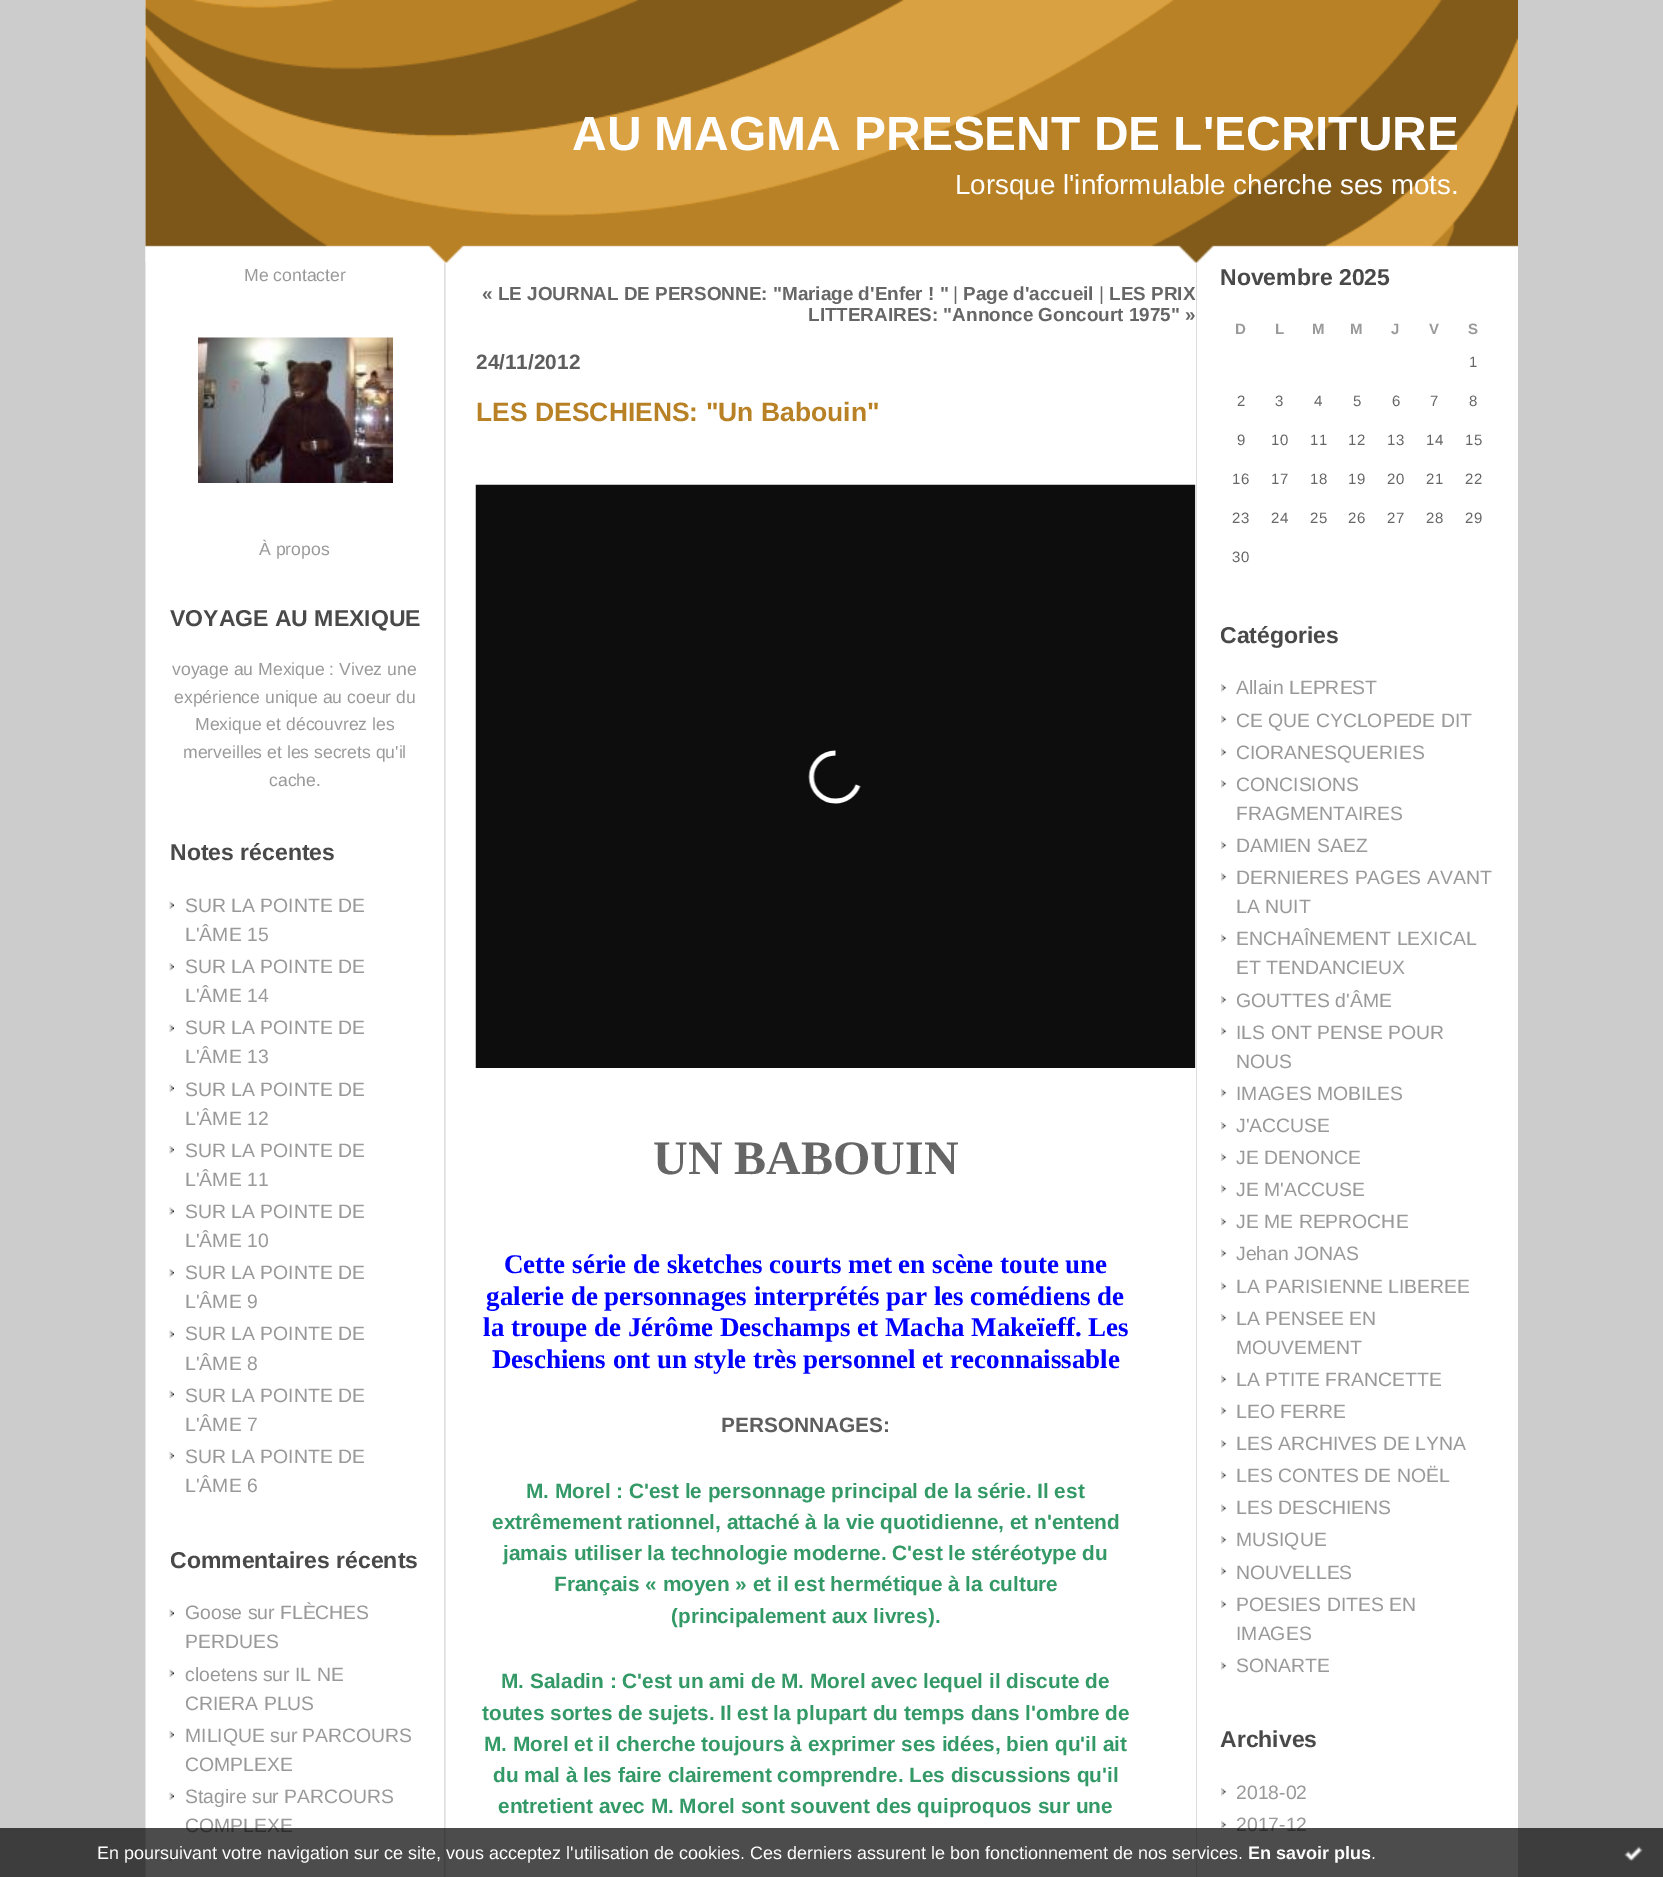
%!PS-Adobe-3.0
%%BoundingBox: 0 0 1663 1877
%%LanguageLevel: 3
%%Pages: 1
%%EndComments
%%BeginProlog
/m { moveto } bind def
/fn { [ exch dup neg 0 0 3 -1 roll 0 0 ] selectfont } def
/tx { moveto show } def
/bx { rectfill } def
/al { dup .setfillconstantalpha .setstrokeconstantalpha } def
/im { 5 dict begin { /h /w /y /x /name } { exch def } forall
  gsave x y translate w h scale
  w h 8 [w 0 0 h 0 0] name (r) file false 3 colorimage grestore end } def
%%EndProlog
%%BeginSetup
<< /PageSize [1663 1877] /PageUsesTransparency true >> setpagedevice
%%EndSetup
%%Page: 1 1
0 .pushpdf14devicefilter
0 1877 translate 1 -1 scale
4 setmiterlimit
0.8 setgray
0 0 1663 1877 bx
(image0.raw) 145 0 1052 1877 im
1 setgray
443 262 1075 1 bx
(image1.raw) 145 0 1373 263 im
/LiberationSans-Bold 47.9 fn
(AU MAGMA PRESENT DE L'ECRITURE) 572 150 tx
/LiberationSans-Regular 27.75 fn
(Lorsque l'informulable cherche ses mots.) 955 194 tx
443 263 1 1614 bx
/LiberationSans-Regular 17.6 fn
0.6 setgray
(Me contacter) 244 281 tx
(image2.raw) 198 337 195 146 im
(À propos) 259 555 tx
/LiberationSans-Bold 23 fn
0.286 setgray
(VOYAGE AU MEXIQUE) 170 626 tx
/LiberationSans-Regular 17.6 fn
0.6 setgray
(voyage au Mexique : Vivez une) 172 675 tx
(expérience unique au coeur du) 174 703 tx
(Mexique et découvrez les) 195 730 tx
(merveilles et les secrets qu'il) 183 758 tx
(cache.) 269 786 tx
/LiberationSans-Bold 23 fn
0.286 setgray
(Notes récentes) 170 860 tx
(image3.raw) 169 901 5 8 im
/LiberationSans-Regular 19.4 fn
0.6 setgray
(SUR LA POINTE DE) 185 912 tx
(L'ÂME 15) 185 941 tx
(image4.raw) 169 963 5 8 im
(SUR LA POINTE DE) 185 973 tx
(L'ÂME 14) 185 1002 tx
(image3.raw) 169 1024 5 8 im
(SUR LA POINTE DE) 185 1034 tx
(L'ÂME 13) 185 1063 tx
(image3.raw) 169 1084 5 8 im
(SUR LA POINTE DE) 185 1096 tx
(L'ÂME 12) 185 1125 tx
(image4.raw) 169 1146 5 8 im
(SUR LA POINTE DE) 185 1157 tx
(L'ÂME 11) 185 1186 tx
(image3.raw) 169 1207 5 8 im
(SUR LA POINTE DE) 185 1218 tx
(L'ÂME 10) 185 1247 tx
(image4.raw) 169 1269 5 8 im
(SUR LA POINTE DE) 185 1279 tx
(L'ÂME 9) 185 1308 tx
(image3.raw) 169 1330 5 8 im
(SUR LA POINTE DE) 185 1340 tx
(L'ÂME 8) 185 1370 tx
(image3.raw) 169 1390 5 8 im
(SUR LA POINTE DE) 185 1402 tx
(L'ÂME 7) 185 1431 tx
(image4.raw) 169 1452 5 8 im
(SUR LA POINTE DE) 185 1463 tx
(L'ÂME 6) 185 1492 tx
/LiberationSans-Bold 23 fn
0.286 setgray
(Commentaires récents) 170 1568 tx
(image3.raw) 169 1609 5 8 im
/LiberationSans-Regular 19.4 fn
0.6 setgray
(Goose sur FLÈCHES) 185 1619 tx
(PERDUES) 185 1648 tx
(image3.raw) 169 1669 5 8 im
(cloetens sur IL NE) 185 1681 tx
(CRIERA PLUS) 185 1710 tx
(image4.raw) 169 1731 5 8 im
(MILIQUE sur PARCOURS) 185 1742 tx
(COMPLEXE) 185 1771 tx
(image3.raw) 169 1792 5 8 im
(Stagire sur PARCOURS) 185 1803 tx
(COMPLEXE) 185 1832 tx
(image4.raw) 169 1854 5 8 im
1 setgray
1195 263 1 1614 bx
/LiberationSans-Bold 18.9 fn
0.4 setgray
(« LE JOURNAL DE PERSONNE: "Mariage d'Enfer ! ") 482 300 tx
/LiberationSans-Regular 18.9 fn
(|) 953 300 tx
/LiberationSans-Bold 18.9 fn
(Page d'accueil) 963 300 tx
/LiberationSans-Regular 18.9 fn
(|) 1099 300 tx
/LiberationSans-Bold 18.9 fn
(LES PRIX) 1109 300 tx
(LITTERAIRES: "Annonce Goncourt 1975" ») 808 321 tx
/LiberationSans-Bold 20.8 fn
0.369 setgray
(24/11/2012) 476 369 tx
/LiberationSans-Bold 26.5 fn
0.725 0.506 0.145 setrgbcolor
(LES DESCHIENS: "Un Babouin") 476 421 tx
(image5.raw) 475 484 721 584 im
/LiberationSerif-Bold 48 fn
0.4 setgray
(UN BABOUIN) 653 1174 tx
/LiberationSerif-Bold 27 fn
0 0 1 setrgbcolor
(Cette série de sketches courts met en scène toute une) 504 1273 tx
(galerie de personnages interprétés par les comédiens de) 486 1305 tx
(la troupe de Jérôme Deschamps et Macha Makeïeff. Les) 483 1336 tx
(Deschiens ont un style très personnel et reconnaissable) 492 1368 tx
/LiberationSans-Bold 20.8 fn
0.369 setgray
(PERSONNAGES:) 721 1432 tx
0.2 0.6 0.4 setrgbcolor
(M. Morel : C'est le personnage principal de la série. Il est) 526 1498 tx
(extrêmement rationnel, attaché à la vie quotidienne, et n'entend) 492 1529 tx
(jamais utiliser la technologie moderne. C'est le stéréotype du) 503 1560 tx
(Français « moyen » et il est hermétique à la culture) 554 1591 tx
(\(principalement aux livres\).) 671 1623 tx
(M. Saladin : C'est un ami de M. Morel avec lequel il discute de) 501 1688 tx
(toutes sortes de sujets. Il est la plupart du temps dans l'ombre de) 482 1720 tx
(M. Morel et il cherche toujours à exprimer ses idées, bien qu'il ait) 484 1751 tx
(du mal à les faire clairement comprendre. Les discussions qu'il) 493 1782 tx
(entretient avec M. Morel sont souvent des quiproquos sur une) 498 1813 tx
1 setgray
1197 263 321 1614 bx
/LiberationSans-Bold 23 fn
0.286 setgray
(Novembre 2025) 1220 285 tx
/LiberationSans-Bold 15 fn
0.6 setgray
1235 334 m 2 0 (D) ashow
1275 334 m 2 0 (L) ashow
1312 334 m 2 0 (M) ashow
1350 334 m 2 0 (M) ashow
1391 334 m 2 0 (J) ashow
1429 334 m 2 0 (V) ashow
1468 334 m 2 0 (S) ashow
/LiberationSans-Regular 15 fn
0.4 setgray
1469 367 m 1 0 (1) ashow
1237 406 m 1 0 (2) ashow
1275 406 m 1 0 (3) ashow
1314 406 m 1 0 (4) ashow
1353 406 m 1 0 (5) ashow
1392 406 m 1 0 (6) ashow
1430 406 m 1 0 (7) ashow
1469 406 m 1 0 (8) ashow
1237 445 m 1 0 (9) ashow
1271 445 m 1 0 (10) ashow
1310 445 m 1 0 (11) ashow
1348 445 m 1 0 (12) ashow
1387 445 m 1 0 (13) ashow
1426 445 m 1 0 (14) ashow
1465 445 m 1 0 (15) ashow
1232 484 m 1 0 (16) ashow
1271 484 m 1 0 (17) ashow
1310 484 m 1 0 (18) ashow
1348 484 m 1 0 (19) ashow
1387 484 m 1 0 (20) ashow
1426 484 m 1 0 (21) ashow
1465 484 m 1 0 (22) ashow
1232 523 m 1 0 (23) ashow
1271 523 m 1 0 (24) ashow
1310 523 m 1 0 (25) ashow
1348 523 m 1 0 (26) ashow
1387 523 m 1 0 (27) ashow
1426 523 m 1 0 (28) ashow
1465 523 m 1 0 (29) ashow
1232 562 m 1 0 (30) ashow
/LiberationSans-Bold 23 fn
0.286 setgray
(Catégories) 1220 643 tx
(image6.raw) 1221 684 5 8 im
/LiberationSans-Regular 19.4 fn
0.6 setgray
(Allain LEPREST) 1236 694 tx
(image7.raw) 1221 715 5 8 im
(CE QUE CYCLOPEDE DIT) 1236 727 tx
(image7.raw) 1221 748 5 8 im
(CIORANESQUERIES) 1236 759 tx
(image6.raw) 1221 780 5 8 im
(CONCISIONS) 1236 791 tx
(FRAGMENTAIRES) 1236 820 tx
(image7.raw) 1221 841 5 8 im
(DAMIEN SAEZ) 1236 852 tx
(image6.raw) 1221 873 5 8 im
(DERNIERES PAGES AVANT) 1236 884 tx
(LA NUIT) 1236 913 tx
(image7.raw) 1221 934 5 8 im
(ENCHAÎNEMENT LEXICAL) 1236 945 tx
(ET TENDANCIEUX) 1236 974 tx
(image6.raw) 1221 996 5 8 im
(GOUTTES d'ÂME) 1236 1007 tx
(image7.raw) 1221 1027 5 8 im
(ILS ONT PENSE POUR) 1236 1039 tx
(NOUS) 1236 1068 tx
(image6.raw) 1221 1089 5 8 im
(IMAGES MOBILES) 1236 1100 tx
(image6.raw) 1221 1122 5 8 im
(J'ACCUSE) 1236 1132 tx
(image7.raw) 1221 1153 5 8 im
(JE DENONCE) 1236 1164 tx
(image6.raw) 1221 1185 5 8 im
(JE M'ACCUSE) 1236 1196 tx
(image6.raw) 1221 1218 5 8 im
(JE ME REPROCHE) 1236 1228 tx
(image7.raw) 1221 1249 5 8 im
(Jehan JONAS) 1236 1260 tx
(image7.raw) 1221 1282 5 8 im
(LA PARISIENNE LIBEREE) 1236 1293 tx
(image6.raw) 1221 1314 5 8 im
(LA PENSEE EN) 1236 1325 tx
(MOUVEMENT) 1236 1354 tx
(image7.raw) 1221 1375 5 8 im
(LA PTITE FRANCETTE) 1236 1386 tx
(image6.raw) 1221 1407 5 8 im
(LEO FERRE) 1236 1418 tx
(image6.raw) 1221 1440 5 8 im
(LES ARCHIVES DE LYNA) 1236 1450 tx
(image7.raw) 1221 1471 5 8 im
(LES CONTES DE NOËL) 1236 1482 tx
(image7.raw) 1221 1504 5 8 im
(LES DESCHIENS) 1236 1514 tx
(image6.raw) 1221 1536 5 8 im
(MUSIQUE) 1236 1546 tx
(image7.raw) 1221 1567 5 8 im
(NOUVELLES) 1236 1579 tx
(image7.raw) 1221 1600 5 8 im
(POESIES DITES EN) 1236 1611 tx
(IMAGES) 1236 1640 tx
(image6.raw) 1221 1662 5 8 im
(SONARTE) 1236 1672 tx
/LiberationSans-Bold 23 fn
0.286 setgray
(Archives) 1220 1747 tx
(image6.raw) 1221 1788 5 8 im
/LiberationSans-Regular 19.4 fn
0.6 setgray
(2018-02) 1236 1799 tx
(image6.raw) 1221 1821 5 8 im
(2017-12) 1236 1831 tx
(image7.raw) 1221 1852 5 8 im
0.7 al
0 setgray
0 1828 1663 49 bx
/LiberationSans-Regular 18 fn
1 al
1 setgray
(En poursuivant votre navigation sur ce site, vous acceptez l'utilisation de cookies. Ces derniers assurent le bon fonctionnement de nos services.) 97 1859 tx
/LiberationSans-Bold 18 fn
(En savoir plus) 1248 1859 tx
/LiberationSans-Regular 18 fn
(.) 1371 1859 tx
(image8.raw) 1624 1846 19 15 im
.poppdf14devicefilter showpage
%%EOF
